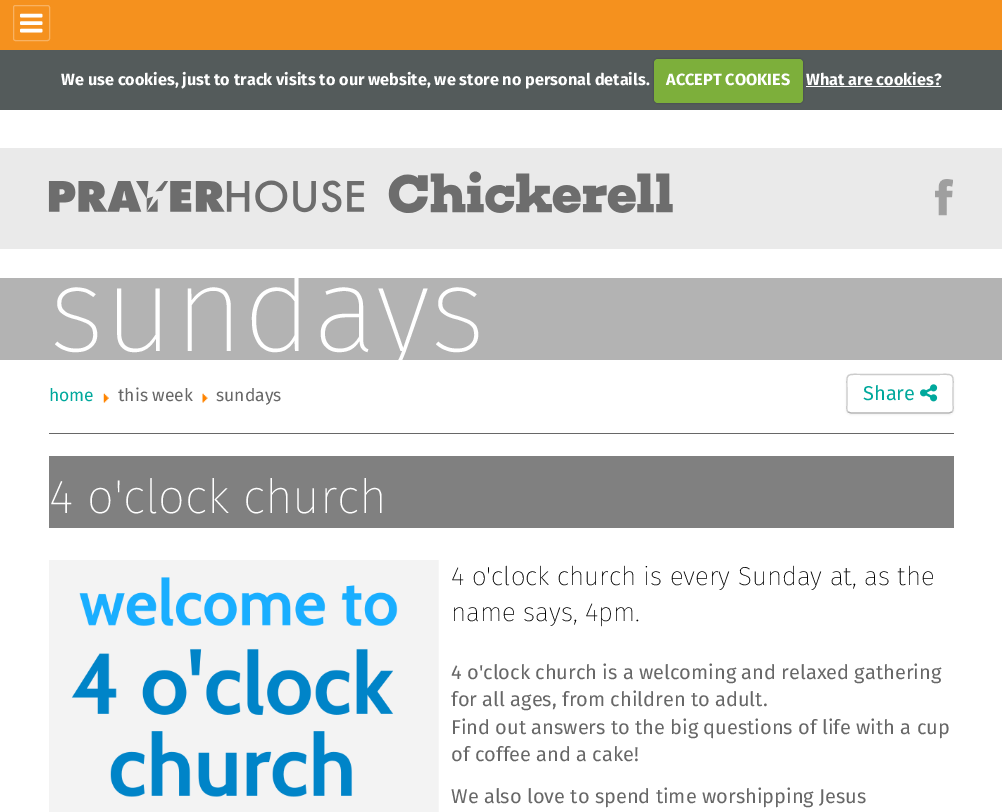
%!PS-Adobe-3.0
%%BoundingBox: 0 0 1002 812
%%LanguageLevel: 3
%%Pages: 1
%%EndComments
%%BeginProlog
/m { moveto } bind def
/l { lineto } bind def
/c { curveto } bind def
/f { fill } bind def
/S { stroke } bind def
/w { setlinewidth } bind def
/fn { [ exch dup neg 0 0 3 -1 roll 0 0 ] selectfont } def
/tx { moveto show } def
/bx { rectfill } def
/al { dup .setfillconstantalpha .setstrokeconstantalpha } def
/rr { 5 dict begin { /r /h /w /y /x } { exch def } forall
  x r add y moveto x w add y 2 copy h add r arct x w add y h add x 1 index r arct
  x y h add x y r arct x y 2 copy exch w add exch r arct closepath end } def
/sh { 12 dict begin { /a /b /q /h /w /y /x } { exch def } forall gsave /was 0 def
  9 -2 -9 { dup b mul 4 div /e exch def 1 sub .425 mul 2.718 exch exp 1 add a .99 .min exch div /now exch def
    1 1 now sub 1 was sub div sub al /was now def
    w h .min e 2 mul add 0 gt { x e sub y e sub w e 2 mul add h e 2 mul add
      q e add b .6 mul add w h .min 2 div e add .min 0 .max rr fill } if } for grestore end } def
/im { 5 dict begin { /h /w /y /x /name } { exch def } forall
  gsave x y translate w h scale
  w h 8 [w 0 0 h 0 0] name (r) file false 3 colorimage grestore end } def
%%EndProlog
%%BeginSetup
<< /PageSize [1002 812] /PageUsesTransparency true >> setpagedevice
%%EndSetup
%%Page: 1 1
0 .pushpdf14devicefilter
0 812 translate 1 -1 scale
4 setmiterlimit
0.329 0.357 0.357 setrgbcolor
0 0 1002 812 bx
0.961 0.569 0.118 setrgbcolor
0 0 1002 50 bx
0.973 0.698 0.384 setrgbcolor
13.5 5.5 36 35 2 rr S
(image0.raw) 20 13 23 20 im
/FiraSans-Bold 16.25 fn
1 setgray
(We use cookies, just to track visits to our website, we store no personal details.) 61 85 tx
0 setgray
654 59 149 44 4 1 0.25 sh
0.49 0.686 0.231 setrgbcolor
654 59 149 44 4 rr f
1 setgray
(ACCEPT COOKIES) 666 85 tx
(What are cookies?) 806 85 tx
806 86 135 1 bx
0 110 1002 702 bx
0.918 setgray
0 148 1002 101 bx
(image1.raw) 48 171 625 42 im
(image2.raw) 935 179 18 37 im
0.702 setgray
0 278 1002 82 bx
/FiraSans-ExtraLight 120 fn
1 setgray
(sundays) 49 351 tx
0.404 setgray
49 433 905 1 bx
/FiraSans-Regular 17.5 fn
0 0.659 0.612 setrgbcolor
(home) 49 401 tx
(image3.raw) 103 393 6 10 im
0.404 setgray
(this week) 118 401 tx
(image4.raw) 202 393 6 10 im
(sundays) 216 401 tx
0 setgray
846 375 108 40 5 1 0.05 sh
1 setgray
846 374 108 40 5 rr f
0.702 setgray
1.2 w
952 412 m 949 413 l 851 413 l 848 412 l S
0.8 setgray
848 412 m 846 410 847 406 847 404 c 847 394 l 847 371 843.5 374.5 867.5 374.5 c 932.5 374.5 l 956.5 374.5 953 371 953 394 c 953 404 l 953 406 954 410 952 412 c S
/FiraSans-Regular 20 fn
0 0.659 0.612 setrgbcolor
(Share) 863 400 tx
(image5.raw) 920 384 18 18 im
0.502 setgray
49 456 905 72 bx
/FiraSans-ExtraLight 47.5 fn
1 setgray
(4 o'clock church) 49 513 tx
(image6.raw) 49 560 390 252 im
/FiraSans-ExtraLight 26 fn
0 setgray
(4 o'clock church is every Sunday at, as the) 451 585 tx
(name says, 4pm.) 451 621 tx
/FiraSans-Regular 20 fn
0.404 setgray
(4 o'clock church is a welcoming and relaxed gathering) 451 679 tx
(for all ages, from children to adult.) 451 706 tx
(Find out answers to the big questions of life with a cup) 451 734 tx
(of coffee and a cake!) 451 761 tx
(We also love to spend time worshipping Jesus) 451 803 tx
.poppdf14devicefilter showpage
%%EOF
